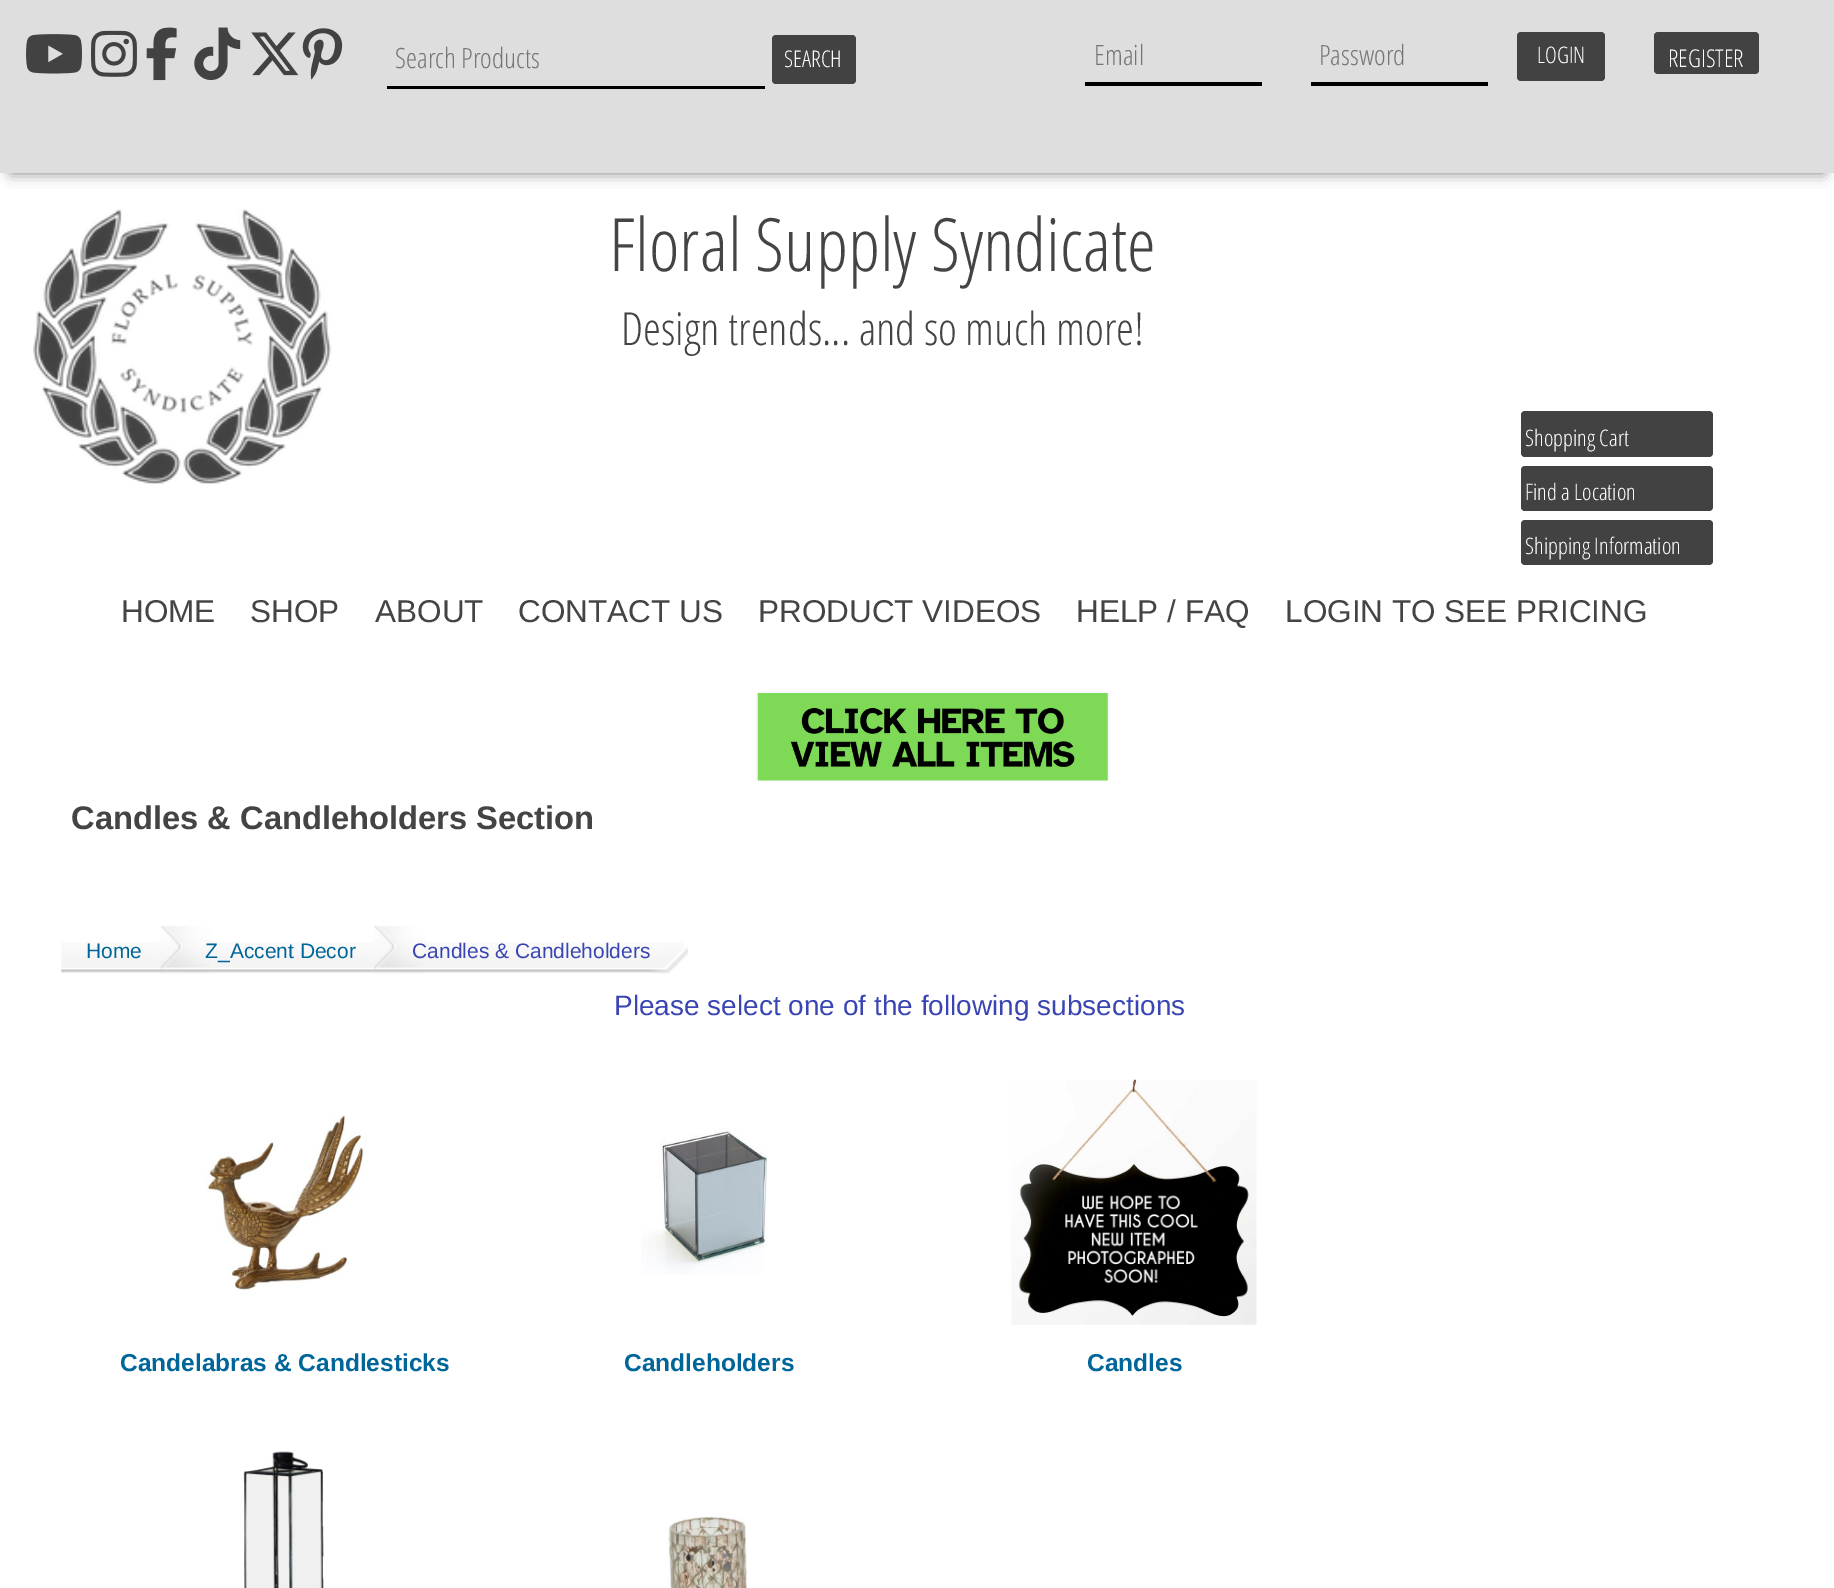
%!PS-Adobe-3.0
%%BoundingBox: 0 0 1834 1588
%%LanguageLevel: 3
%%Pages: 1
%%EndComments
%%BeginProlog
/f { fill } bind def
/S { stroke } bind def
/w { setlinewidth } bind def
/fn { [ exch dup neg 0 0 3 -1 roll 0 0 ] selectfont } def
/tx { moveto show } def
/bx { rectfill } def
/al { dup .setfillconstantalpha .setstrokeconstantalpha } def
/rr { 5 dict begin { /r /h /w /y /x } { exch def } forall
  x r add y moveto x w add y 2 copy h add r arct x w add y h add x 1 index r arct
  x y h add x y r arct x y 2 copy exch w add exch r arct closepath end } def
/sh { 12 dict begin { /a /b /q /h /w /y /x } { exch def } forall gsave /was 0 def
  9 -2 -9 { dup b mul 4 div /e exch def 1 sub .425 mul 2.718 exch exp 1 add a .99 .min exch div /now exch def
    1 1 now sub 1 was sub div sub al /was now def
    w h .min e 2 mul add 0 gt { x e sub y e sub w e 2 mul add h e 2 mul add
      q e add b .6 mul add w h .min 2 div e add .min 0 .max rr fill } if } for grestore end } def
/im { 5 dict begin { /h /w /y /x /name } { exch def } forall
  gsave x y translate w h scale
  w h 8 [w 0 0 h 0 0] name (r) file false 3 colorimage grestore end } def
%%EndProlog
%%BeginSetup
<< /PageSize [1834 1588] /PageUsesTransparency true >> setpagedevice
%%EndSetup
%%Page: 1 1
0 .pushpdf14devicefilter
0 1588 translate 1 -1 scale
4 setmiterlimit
1 setgray
0 0 1834 1588 bx
0 setgray
11 21 1813 152 0 7 0.5 sh
0.871 setgray
0 0 1834 173 bx
(image0.raw) 26 34 56 40 im
(image1.raw) 91 30 46 47 im
(image2.raw) 146 27 31 54 im
(image3.raw) 194 27 47 53 im
(image4.raw) 251 32 48 44 im
(image5.raw) 302 28 41 52 im
0 setgray
387 86 378 3 bx
/OpenSansCondensed-Light 28 fn
0.459 setgray
(Search Products) 395 68 tx
0.259 setgray
772 35 84 49 4 rr f
/OpenSansCondensed-Light 23 fn
1 setgray
(SEARCH) 784 67 tx
0 setgray
1085 82 177 4 bx
/OpenSansCondensed-Light 28 fn
0.459 setgray
(Email) 1094 65 tx
0 setgray
1311 82 177 4 bx
0.459 setgray
(Password) 1319 65 tx
0.259 setgray
1517 32 88 49 4 rr f
/OpenSansCondensed-Light 22.75 fn
1 setgray
(LOGIN) 1537 63 tx
0.259 setgray
1654 32 105 42 4 rr f
/OpenSansCondensed-Light 24.5 fn
1 setgray
(REGISTER) 1668 67 tx
(image6.raw) 33 209 299 276 im
/OpenSansCondensed-Light 73.5 fn
0.267 setgray
(Floral Supply Syndicate) 609 271 tx
/OpenSansCondensed-Light 45.5 fn
(Design trends... and so much more!) 621 345 tx
0.259 setgray
1521 411 192 46 4 rr f
/OpenSansCondensed-Light 22.75 fn
1 setgray
(Shopping Cart) 1525 446 tx
0.259 setgray
1521 466 192 45 4 rr f
1 setgray
(Find a Location) 1525 500 tx
0.259 setgray
1521 520 192 45 4 rr f
1 setgray
(Shipping Information) 1525 554 tx
/LiberationSans-Regular 31.5 fn
0.267 setgray
(HOME) 121 622 tx
(SHOP) 250 622 tx
(ABOUT) 375 622 tx
(CONTACT US) 518 622 tx
(PRODUCT VIDEOS) 758 622 tx
(HELP / FAQ) 1076 622 tx
(LOGIN TO SEE PRICING) 1285 622 tx
0.973 0.976 0.98 setrgbcolor
2 w
757 692 352 89 6 rr S
(image7.raw) 757 693 351 88 im
/LiberationSans-Bold 32.7 fn
0.267 setgray
(Candles & Candleholders Section) 71 829 tx
(image8.raw) 159 925 53 49 im
(image9.raw) 61 942 99 31 im
/LiberationSans-Regular 21 fn
0 0.4 0.6 setrgbcolor
(Home) 86 958 tx
(image10.raw) 372 925 54 49 im
(image11.raw) 211 942 162 31 im
(Z_Accent Decor) 205 958 tx
(image12.raw) 651 942 37 32 im
(image13.raw) 425 942 226 31 im
0.224 0.271 0.698 setrgbcolor
(Candles & Candleholders) 412 958 tx
/LiberationSans-Regular 28 fn
(Please select one of the following subsections) 614 1015 tx
(image14.raw) 205 1115 161 176 im
/LiberationSans-Bold 24.5 fn
0 0.4 0.6 setrgbcolor
(Candelabras & Candlesticks) 120 1371 tx
(image15.raw) 641 1128 127 147 im
(Candleholders) 624 1371 tx
(image16.raw) 1011 1079 246 246 im
(Candles) 1087 1371 tx
(image17.raw) 243 1451 81 137 im
(image18.raw) 668 1516 80 72 im
.poppdf14devicefilter showpage
%%EOF
